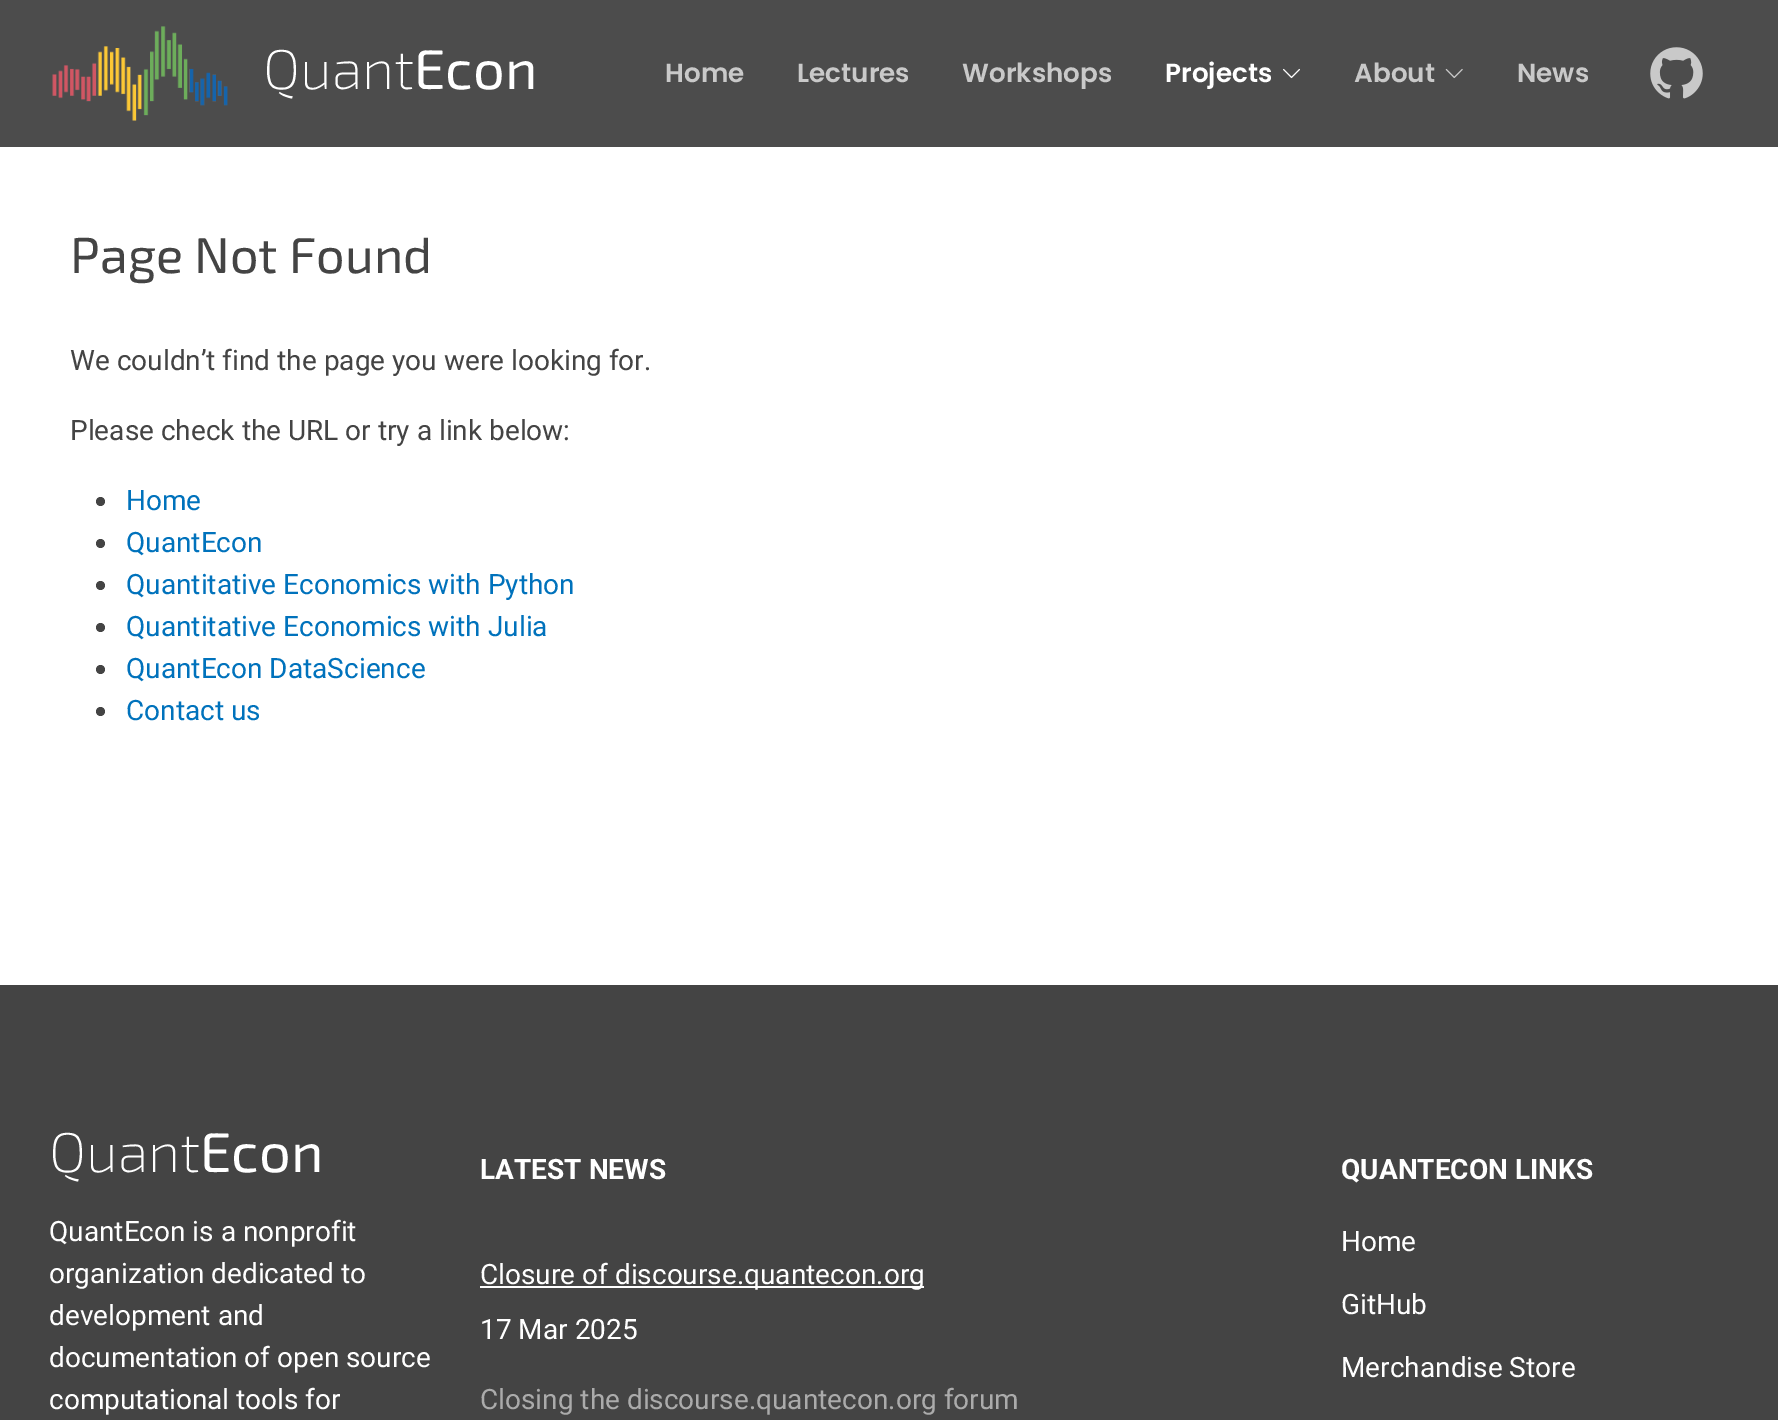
%!PS-Adobe-3.0
%%BoundingBox: 0 0 1778 1420
%%LanguageLevel: 3
%%Pages: 1
%%EndComments
%%BeginProlog
/f { fill } bind def
/fn { [ exch dup neg 0 0 3 -1 roll 0 0 ] selectfont } def
/tx { moveto show } def
/bx { rectfill } def
/ci { newpath 0 360 arc closepath } def
/im { 5 dict begin { /h /w /y /x /name } { exch def } forall
  gsave x y translate w h scale
  w h 8 [w 0 0 h 0 0] name (r) file false 3 colorimage grestore end } def
%%EndProlog
%%BeginSetup
<< /PageSize [1778 1420] >> setpagedevice
%%EndSetup
%%Page: 1 1
0 1420 translate 1 -1 scale
4 setmiterlimit
1 setgray
0 0 1778 1420 bx
0.298 setgray
0 0 1778 147 bx
(image0.raw) 52 26 176 95 im
/Exo2-ExtraLight 56 fn
1 setgray
(Quant) 263 89 tx
/Exo2-Regular 56 fn
(Econ) 414 89 tx
/Poppins-SemiBold 26.25 fn
0.788 setgray
(Home) 665 82 tx
(Lectures) 797 82 tx
(Workshops) 962 82 tx
1 setgray
(Projects) 1165 82 tx
(image1.raw) 1283 68 17 11 im
0.788 setgray
(About) 1354 82 tx
(image2.raw) 1445 68 18 11 im
(News) 1517 82 tx
(image3.raw) 1650 47 53 52 im
/Exo2-Regular 50.5 fn
0.267 setgray
(Page Not Found) 70 273 tx
/Roboto-Regular 28 fn
(We couldn’t find the page you were looking for.) 70 370 tx
(Please check the URL or try a link below:) 70 440 tx
100.5 501.5 4.5 ci f
0 0.447 0.737 setrgbcolor
(Home) 126 510 tx
0.267 setgray
100.5 543.5 4.5 ci f
0 0.447 0.737 setrgbcolor
(QuantEcon) 126 552 tx
0.267 setgray
100.5 585.5 4.5 ci f
0 0.447 0.737 setrgbcolor
(Quantitative Economics with Python) 126 594 tx
0.267 setgray
100.5 627.5 4.5 ci f
0 0.447 0.737 setrgbcolor
(Quantitative Economics with Julia) 126 636 tx
0.267 setgray
100.5 669.5 4.5 ci f
0 0.447 0.737 setrgbcolor
(QuantEcon DataScience) 126 678 tx
0.267 setgray
100.5 711.5 4.5 ci f
0 0.447 0.737 setrgbcolor
(Contact us) 126 720 tx
0.267 setgray
0 985 1778 435 bx
/Exo2-ExtraLight 56 fn
1 setgray
(Quant) 49 1172 tx
/Exo2-Regular 56 fn
(Econ) 200 1172 tx
/Roboto-Regular 28 fn
(QuantEcon is a nonprofit) 49 1241 tx
(organization dedicated to) 49 1283 tx
(development and) 49 1325 tx
(documentation of open source) 49 1367 tx
(computational tools for) 49 1409 tx
/Roboto-Bold 28 fn
(LATEST NEWS) 480 1179 tx
480 1286 444 2 bx
/Roboto-Regular 28 fn
(Closure of discourse.quantecon.org) 480 1284 tx
(17 Mar 2025) 480 1339 tx
0.671 setgray
(Closing the discourse.quantecon.org forum) 480 1409 tx
/Roboto-Bold 28 fn
1 setgray
(QUANTECON LINKS) 1341 1179 tx
/Roboto-Regular 28 fn
(Home) 1341 1251 tx
(GitHub) 1341 1314 tx
(Merchandise Store) 1341 1377 tx
showpage
%%EOF
